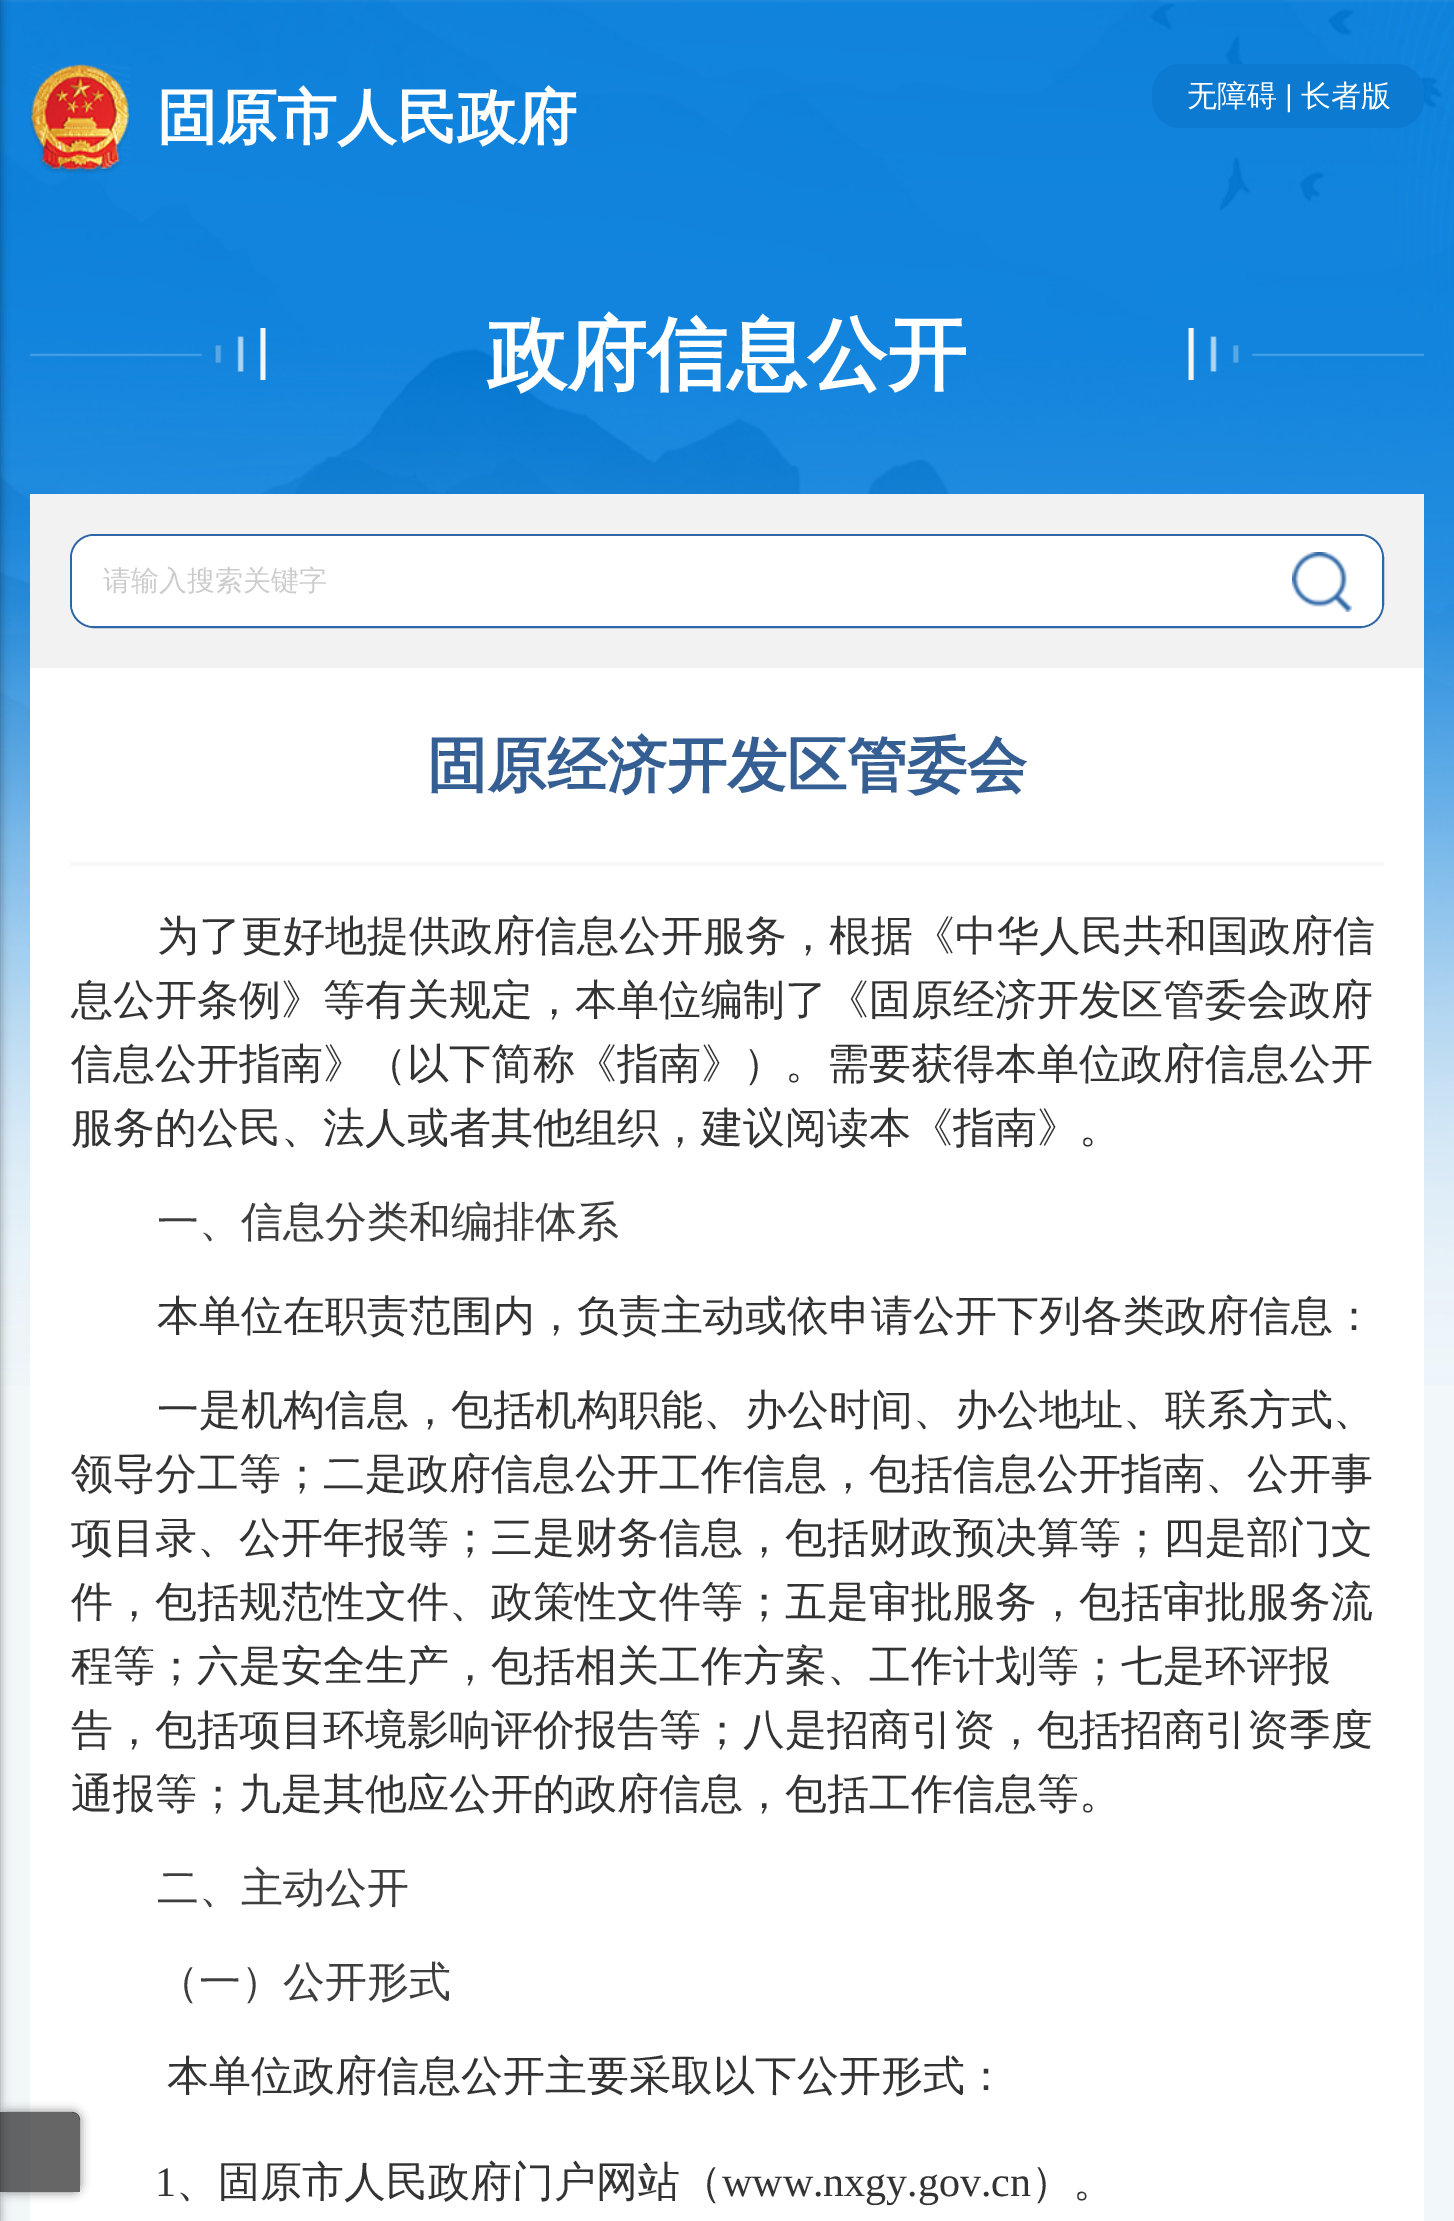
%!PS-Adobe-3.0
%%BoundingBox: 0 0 1454 2221
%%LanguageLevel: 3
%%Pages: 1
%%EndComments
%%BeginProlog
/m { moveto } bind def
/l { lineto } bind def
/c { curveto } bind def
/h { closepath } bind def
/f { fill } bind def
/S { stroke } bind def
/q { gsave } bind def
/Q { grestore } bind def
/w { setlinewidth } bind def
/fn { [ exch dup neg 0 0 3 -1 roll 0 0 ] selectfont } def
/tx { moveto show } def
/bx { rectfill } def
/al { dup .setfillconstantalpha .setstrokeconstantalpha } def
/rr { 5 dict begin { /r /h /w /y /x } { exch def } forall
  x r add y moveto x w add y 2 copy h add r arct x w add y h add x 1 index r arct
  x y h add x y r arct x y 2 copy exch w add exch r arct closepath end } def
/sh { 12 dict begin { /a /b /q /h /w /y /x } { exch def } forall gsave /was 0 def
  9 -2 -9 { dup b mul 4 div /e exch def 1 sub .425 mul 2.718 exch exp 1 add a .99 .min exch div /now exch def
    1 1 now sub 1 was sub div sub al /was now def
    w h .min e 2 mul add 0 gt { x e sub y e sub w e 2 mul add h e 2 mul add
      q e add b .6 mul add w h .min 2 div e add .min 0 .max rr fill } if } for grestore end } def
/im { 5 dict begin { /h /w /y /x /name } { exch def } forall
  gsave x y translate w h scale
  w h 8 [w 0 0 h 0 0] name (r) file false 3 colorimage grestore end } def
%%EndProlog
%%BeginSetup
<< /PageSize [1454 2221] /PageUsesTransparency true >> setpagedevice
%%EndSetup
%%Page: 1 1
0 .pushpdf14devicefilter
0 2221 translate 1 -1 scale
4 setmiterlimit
0.949 0.969 0.98 setrgbcolor
0 0 1454 2221 bx
(image0.raw) 0 0 1454 1385 im
(image1.raw) 30 64 100 110 im
/WenQuanYiZenHei-Bold 60 fn
1 setgray
(固原市人民政府) 157 138 tx
0.047 0.478 0.82 setrgbcolor
1152 64 272 64 28 rr f
/WenQuanYiZenHei-Medium 30 fn
1 setgray
(无障碍) 1187 106 tx
/LiberationSans-Regular 30 fn
(|) 1285 106 tx
/WenQuanYiZenHei-Medium 30 fn
(长者版) 1301 106 tx
(image2.raw) 30 328 1394 52 im
/WenQuanYiZenHei-Bold 80 fn
(政府信息公开) 487 382 tx
0.949 setgray
30 494 1394 174 bx
1 setgray
30 668 1394 1553 bx
0.184 0.4 0.651 setrgbcolor
2 w
71 535 1312 92 23 rr S
1 setgray
94 536 m 1262 536 l 1262 626 l 94 626 l 82 626 72 616 72 604 c 72 558 l 72 546 82 536 94 536 c h f
/WenQuanYiZenHei-Medium 28 fn
0.8 setgray
(请输入搜索关键字) 103 590 tx
1 setgray
1262 536 m 1360 536 l 1372 536 1382 546 1382 558 c 1382 604 l 1382 616 1372 626 1360 626 c 1262 626 l h f
(image3.raw) 1292 552 60 60 im
0 setgray
-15 0 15 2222 0 5 0.4 sh
q
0 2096 m 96 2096 l 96 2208 l 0 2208 l h 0 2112 m 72 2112 l 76.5 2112 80 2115.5 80 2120 c 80 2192 l 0 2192 l h eoclip newpath
0 2112 80 80 8 5 0.5 sh
Q
0.6 al
0 2112 m 72 2112 l 76.5 2112 80 2115.5 80 2120 c 80 2192 l 0 2192 l h f
1 al
0.969 setgray
70 862 1314 4 bx
/WenQuanYiZenHei-Bold 60 fn
0.208 0.369 0.573 setrgbcolor
(固原经济开发区管委会) 427 786 tx
/WenQuanYiZenHei-Medium 42 fn
0.2 setgray
(为了更好地提供政府信息公开服务，根据《中华人民共和国政府信) 157 950 tx
(息公开条例》等有关规定，本单位编制了《固原经济开发区管委会政府) 71 1014 tx
(信息公开指南》（以下简称《指南》）。需要获得本单位政府信息公开) 71 1078 tx
(服务的公民、法人或者其他组织，建议阅读本《指南》。) 71 1142 tx
0.243 setgray
(一、信息分类和编排体系) 157 1236 tx
0.2 setgray
(本单位在职责范围内，负责主动或依申请公开下列各类政府信息：) 157 1330 tx
(一是机构信息，包括机构职能、办公时间、办公地址、联系方式、) 157 1424 tx
(领导分工等；二是政府信息公开工作信息，包括信息公开指南、公开事) 71 1488 tx
(项目录、公开年报等；三是财务信息，包括财政预决算等；四是部门文) 71 1552 tx
(件，包括规范性文件、政策性文件等；五是审批服务，包括审批服务流) 71 1616 tx
(程等；六是安全生产，包括相关工作方案、工作计划等；七是环评报) 71 1680 tx
(告，包括项目环境影响评价报告等；八是招商引资，包括招商引资季度) 71 1744 tx
(通报等；九是其他应公开的政府信息，包括工作信息等。) 71 1808 tx
0.243 setgray
(二、主动公开) 157 1902 tx
(（一）公开形式) 157 1996 tx
0.2 setgray
(本单位政府信息公开主要采取以下公开形式：) 167 2090 tx
/LiberationSerif-Regular 42 fn
(1) 155 2196 tx
/WenQuanYiZenHei-Medium 42 fn
(、固原市人民政府门户网站（) 176 2196 tx
/LiberationSerif-Regular 42 fn
(www.nxgy.gov.cn) 722 2196 tx
/WenQuanYiZenHei-Medium 42 fn
(）。) 1031 2196 tx
.poppdf14devicefilter showpage
%%EOF
